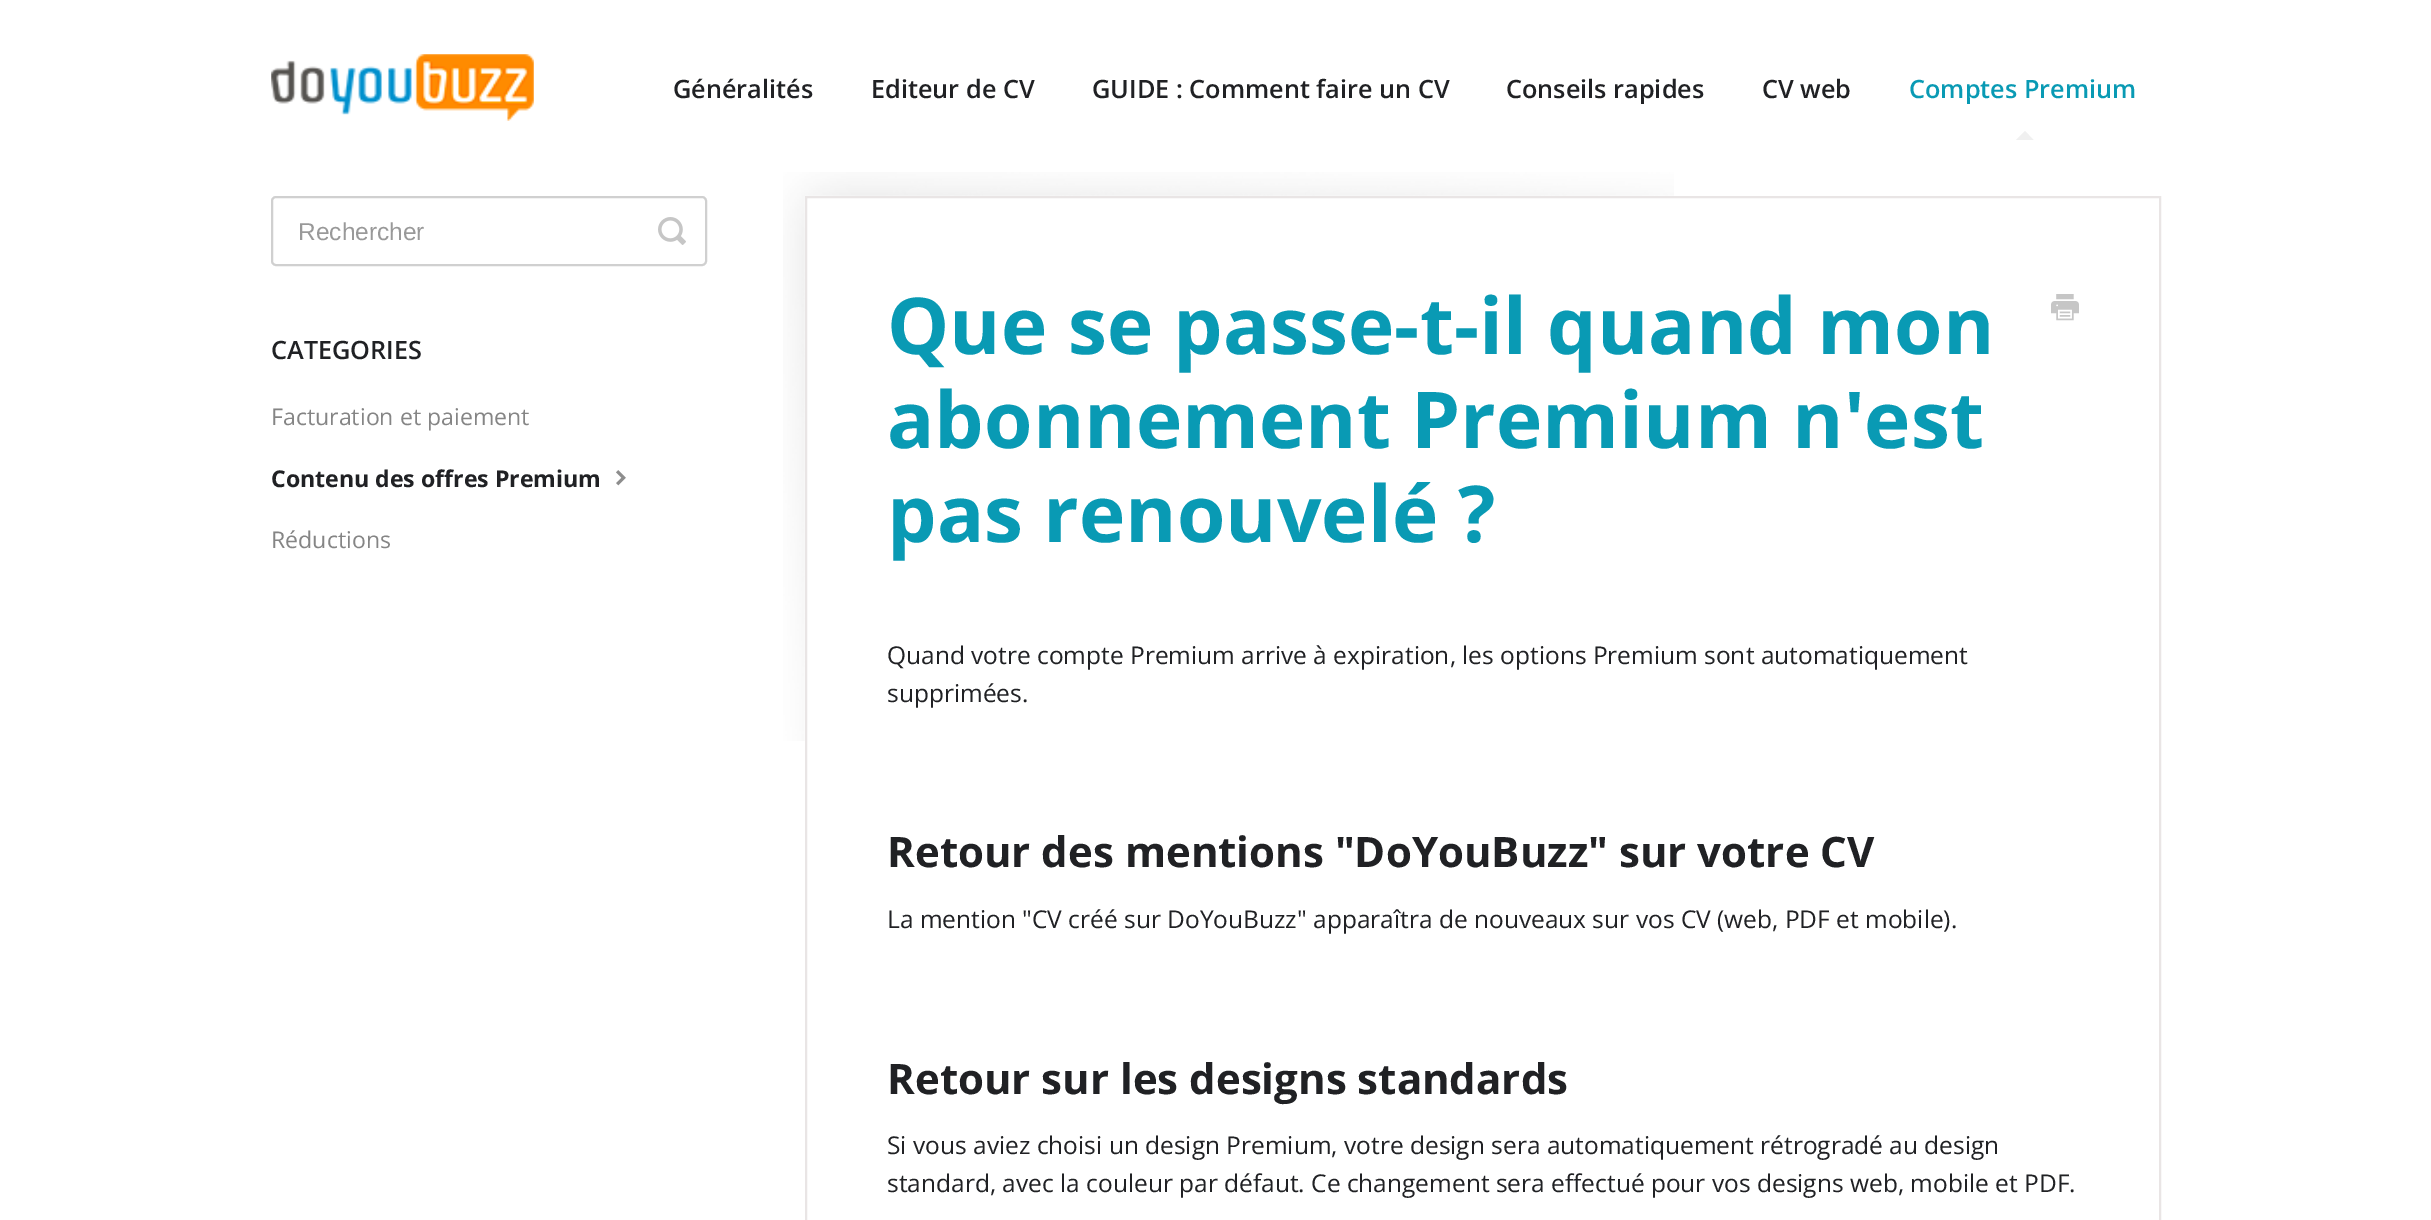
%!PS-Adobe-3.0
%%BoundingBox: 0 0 2431 1220
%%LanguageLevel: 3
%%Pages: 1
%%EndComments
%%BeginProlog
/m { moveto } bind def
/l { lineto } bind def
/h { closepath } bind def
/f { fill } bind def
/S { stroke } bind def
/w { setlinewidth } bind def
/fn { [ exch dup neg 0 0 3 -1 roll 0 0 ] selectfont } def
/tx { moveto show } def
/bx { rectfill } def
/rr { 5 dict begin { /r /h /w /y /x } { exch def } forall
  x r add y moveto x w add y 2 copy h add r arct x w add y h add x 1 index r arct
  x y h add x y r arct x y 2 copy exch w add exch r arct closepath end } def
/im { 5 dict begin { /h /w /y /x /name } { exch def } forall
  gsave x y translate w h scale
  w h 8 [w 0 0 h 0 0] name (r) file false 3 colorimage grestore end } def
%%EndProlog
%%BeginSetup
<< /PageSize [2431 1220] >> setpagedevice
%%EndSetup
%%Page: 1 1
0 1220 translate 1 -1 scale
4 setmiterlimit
1 setgray
0 0 2431 1220 bx
(image0.raw) 271 54 263 67 im
/OpenSans-SemiBold 25.25 fn
0.125 0.129 0.141 setrgbcolor
(Généralités) 673 98 tx
(Editeur de CV) 871 98 tx
(GUIDE : Comment faire un CV) 1092 98 tx
(Conseils rapides) 1506 98 tx
(CV web) 1762 98 tx
0.035 0.604 0.706 setrgbcolor
(Comptes Premium) 1909 98 tx
0.941 setgray
2033.5 140 m 2016 140 l 2025 131 l h f
0.816 setgray
2 w
272 197 434 68 4 rr S
/LiberationSans-Regular 24.5 fn
0.6 setgray
(Rechercher) 298 240 tx
(image1.raw) 658 217 28 28 im
/OpenSans-SemiBold 25.25 fn
0.125 0.129 0.141 setrgbcolor
(CATEGORIES) 271 359 tx
/OpenSans-Regular 23.1 fn
0.522 setgray
(Facturation et paiement) 271 425 tx
/OpenSans-Bold 23.1 fn
0.125 0.129 0.141 setrgbcolor
(Contenu des offres Premium) 271 487 tx
(image2.raw) 616 470 10 16 im
/OpenSans-Regular 23.1 fn
0.522 setgray
(Réductions) 271 548 tx
(image3.raw) 783 172 891 569 im
0.914 0.898 0.898 setrgbcolor
806 197 1354 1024 rectstroke
/OpenSans-Bold 78.4 fn
0.035 0.604 0.706 setrgbcolor
(Que se passe-t-il quand mon) 887 354 tx
(abonnement Premium n'est) 887 448 tx
(pas renouvelé ?) 887 542 tx
(image4.raw) 2051 294 28 27 im
/OpenSans-Regular 24.5 fn
0.125 0.129 0.141 setrgbcolor
(Quand votre compte Premium arrive à expiration, les options Premium sont automatiquement) 887 664 tx
(supprimées.) 887 702 tx
/OpenSans-Bold 42 fn
(Retour des mentions "DoYouBuzz" sur votre CV) 887 867 tx
/OpenSans-Regular 24.5 fn
(La mention "CV créé sur DoYouBuzz" apparaîtra de nouveaux sur vos CV \(web, PDF et mobile\).) 887 928 tx
/OpenSans-Bold 42 fn
(Retour sur les designs standards) 887 1094 tx
/OpenSans-Regular 24.5 fn
(Si vous aviez choisi un design Premium, votre design sera automatiquement rétrogradé au design) 887 1154 tx
(standard, avec la couleur par défaut. Ce changement sera effectué pour vos designs web, mobile et PDF.) 887 1192 tx
showpage
%%EOF
